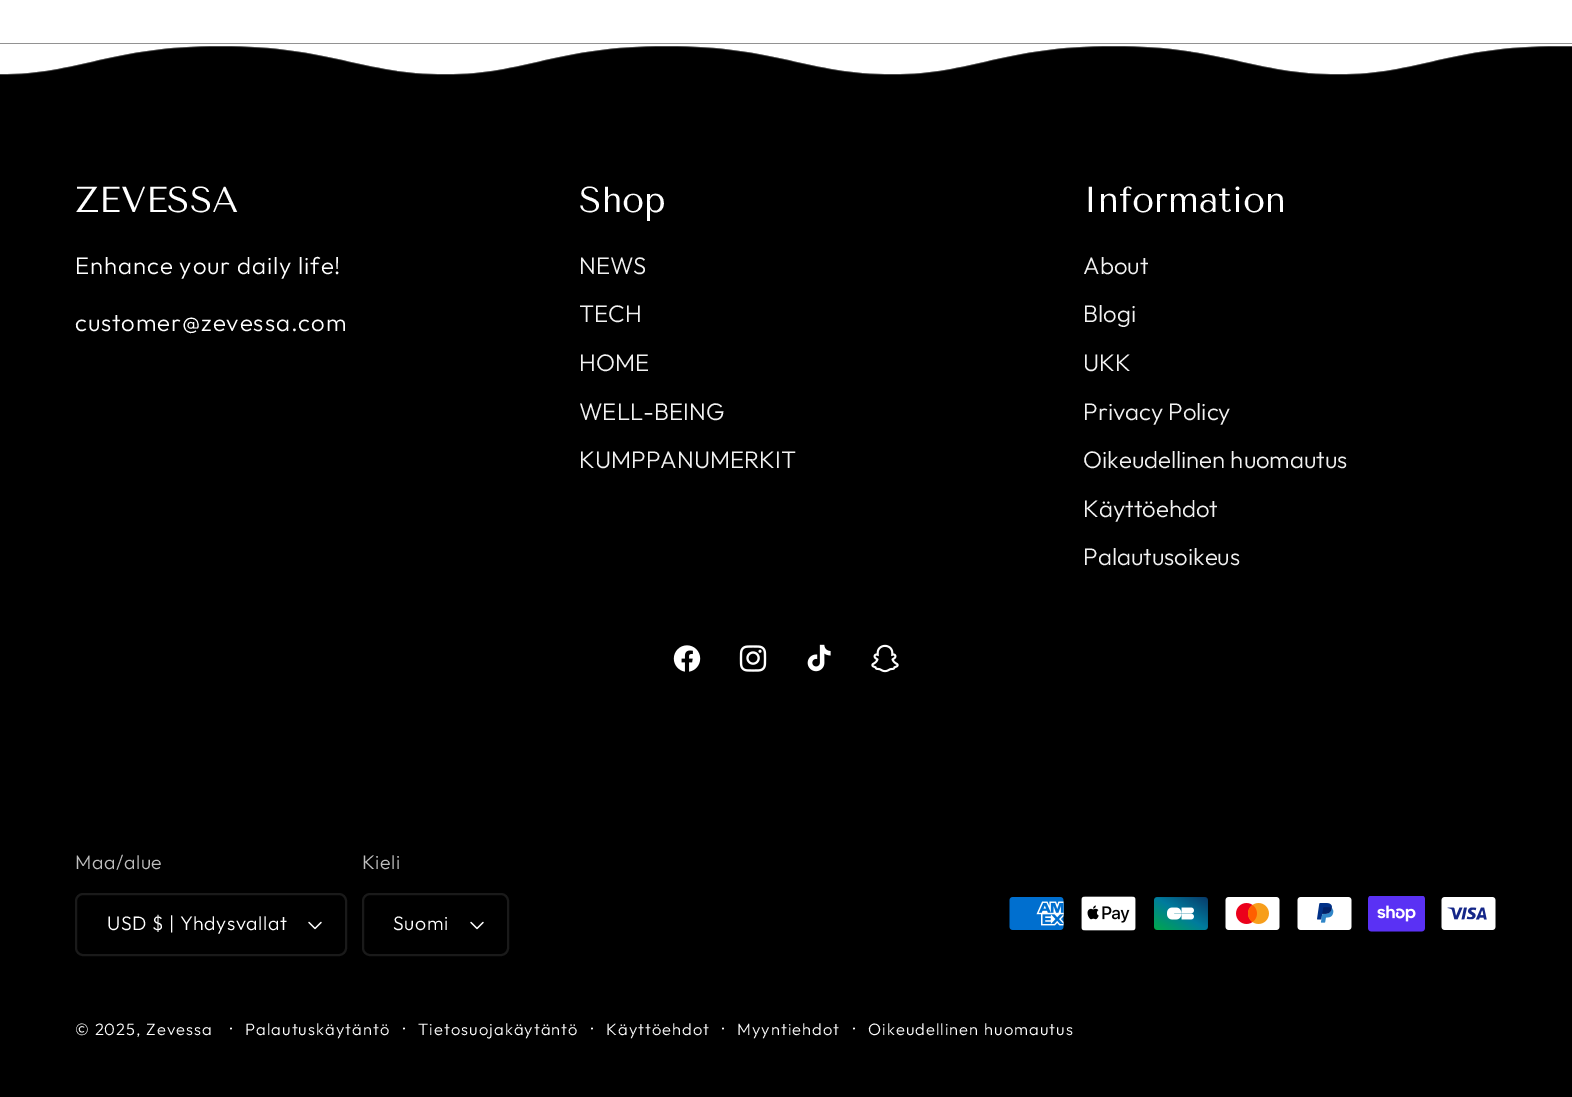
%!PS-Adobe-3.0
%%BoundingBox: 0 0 1572 1097
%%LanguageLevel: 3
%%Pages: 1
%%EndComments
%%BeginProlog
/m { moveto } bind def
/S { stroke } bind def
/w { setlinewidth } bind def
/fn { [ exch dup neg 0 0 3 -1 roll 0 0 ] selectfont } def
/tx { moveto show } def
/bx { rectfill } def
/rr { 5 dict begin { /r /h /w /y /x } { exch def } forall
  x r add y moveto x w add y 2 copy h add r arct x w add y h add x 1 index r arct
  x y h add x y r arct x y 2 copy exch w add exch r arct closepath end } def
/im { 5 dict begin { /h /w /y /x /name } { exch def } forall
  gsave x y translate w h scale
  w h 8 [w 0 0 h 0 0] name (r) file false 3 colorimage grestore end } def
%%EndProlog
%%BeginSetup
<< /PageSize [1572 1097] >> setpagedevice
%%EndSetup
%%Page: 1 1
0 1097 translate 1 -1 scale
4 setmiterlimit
1 setgray
0 0 1572 1097 bx
(image0.raw) 0 43 1572 50 im
(image1.raw) 0 43 1572 32 im
(image2.raw) 0 43 1572 32 im
0 setgray
0 93 1572 1004 bx
/TenorSans-Regular 36 fn
1 setgray
(ZEVESSA) 75 212 tx
/Outfit-Light 24 fn
75 274 m 0.9 0 (Enhance your daily life!) ashow
75 331 m 0.9 0 (customer@zevessa.com) ashow
/TenorSans-Regular 36 fn
(Shop) 579 212 tx
/Outfit-Light 24 fn
0.949 setgray
(NEWS) 579 274 tx
(TECH) 579 322 tx
(HOME) 579 371 tx
(WELL-BEING) 579 420 tx
(KUMPPANUMERKIT) 579 468 tx
/TenorSans-Regular 36 fn
1 setgray
(Information) 1083 212 tx
/Outfit-Light 24 fn
0.949 setgray
(About) 1083 274 tx
(Blogi) 1083 322 tx
(UKK) 1083 371 tx
(Privacy Policy) 1083 420 tx
(Oikeudellinen huomautus) 1083 468 tx
(Käyttöehdot) 1083 517 tx
(Palautusoikeus) 1083 565 tx
(image3.raw) 673 645 28 27 im
(image4.raw) 739 645 28 27 im
(image5.raw) 807 644 24 28 im
(image6.raw) 871 644 28 29 im
/Outfit-Light 19.5 fn
0.749 setgray
75 869 m 0.6 0 (Maa/alue) ashow
(image7.raw) 308 921 14 9 im
0.102 setgray
2 w
76 894 270 61 7 rr S
1 setgray
107 930 m 0.6 0 (USD $ | Yhdysvallat) ashow
0.749 setgray
362 869 m 0.6 0 (Kieli) ashow
(image7.raw) 470 921 14 9 im
0.102 setgray
363 894 145 61 7 rr S
1 setgray
393 930 m 0.6 0 (Suomi) ashow
(image8.raw) 1009 897 55 33 im
(image9.raw) 1081 896 55 35 im
(image10.raw) 1154 897 54 33 im
(image11.raw) 1225 897 55 33 im
(image12.raw) 1297 897 55 33 im
(image13.raw) 1368 896 57 36 im
(image14.raw) 1441 897 55 33 im
/Outfit-Light 16.5 fn
75 1035 m 1.05 0 (© 2025, Zevessa) ashow
/Outfit-Light 18 fn
230 1035 m 1.05 0 (·) ashow
/Outfit-Light 16.5 fn
245 1035 m 1.05 0 (Palautuskäytäntö) ashow
/Outfit-Light 18 fn
403 1035 m 1.05 0 (·) ashow
/Outfit-Light 16.5 fn
418 1035 m 1.05 0 (Tietosuojakäytäntö) ashow
/Outfit-Light 18 fn
591 1035 m 1.05 0 (·) ashow
/Outfit-Light 16.5 fn
606 1035 m 1.05 0 (Käyttöehdot) ashow
/Outfit-Light 18 fn
722 1035 m 1.05 0 (·) ashow
/Outfit-Light 16.5 fn
737 1035 m 1.05 0 (Myyntiehdot) ashow
/Outfit-Light 18 fn
853 1035 m 1.05 0 (·) ashow
/Outfit-Light 16.5 fn
868 1035 m 1.05 0 (Oikeudellinen huomautus) ashow
showpage
%%EOF
